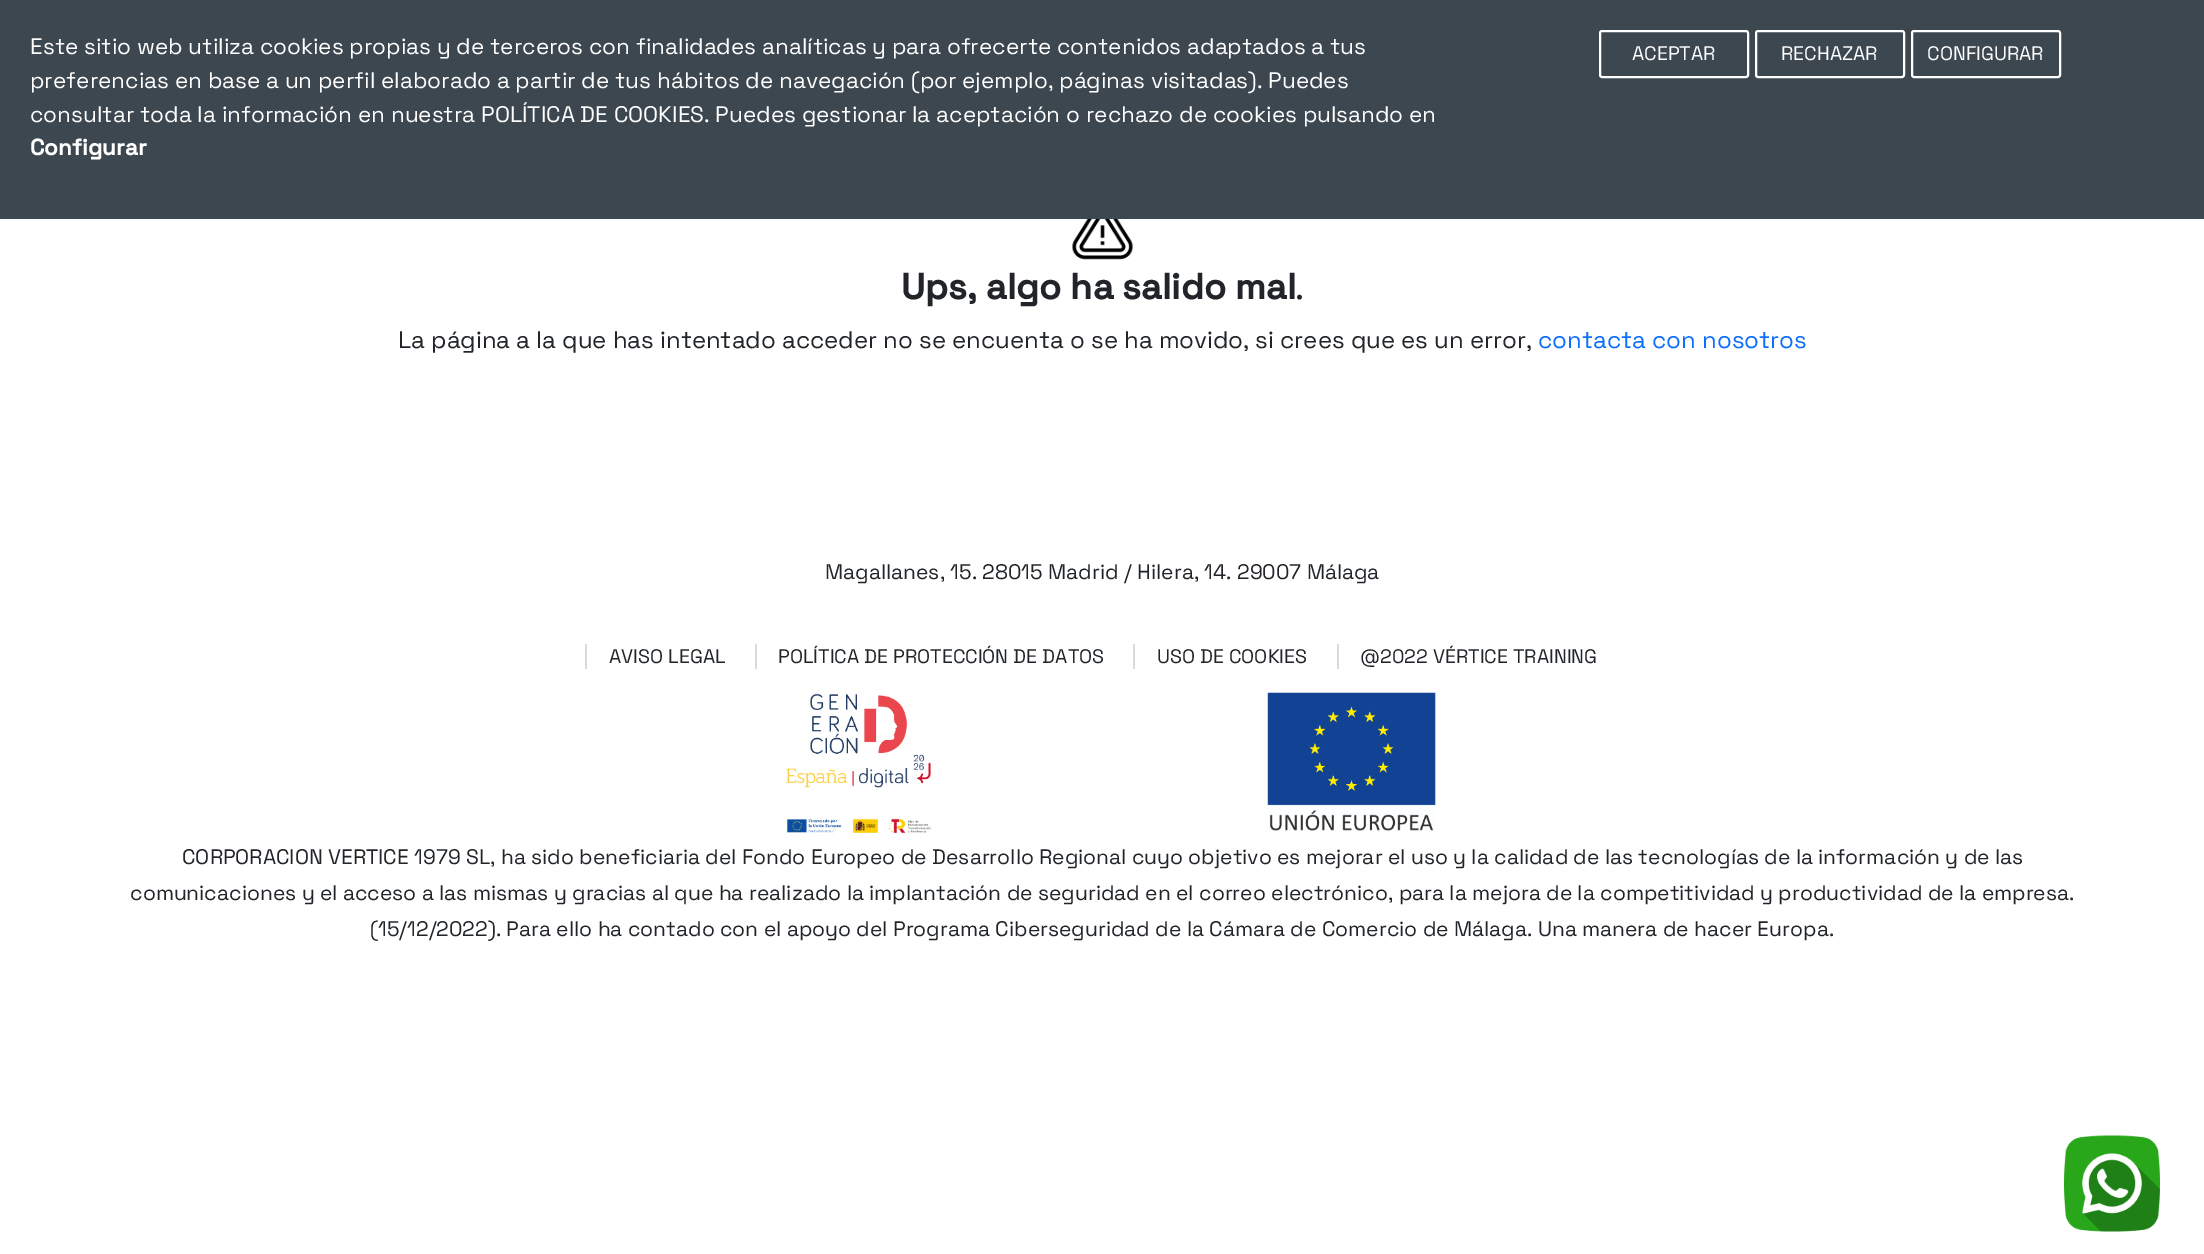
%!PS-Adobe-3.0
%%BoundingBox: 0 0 2204 1254
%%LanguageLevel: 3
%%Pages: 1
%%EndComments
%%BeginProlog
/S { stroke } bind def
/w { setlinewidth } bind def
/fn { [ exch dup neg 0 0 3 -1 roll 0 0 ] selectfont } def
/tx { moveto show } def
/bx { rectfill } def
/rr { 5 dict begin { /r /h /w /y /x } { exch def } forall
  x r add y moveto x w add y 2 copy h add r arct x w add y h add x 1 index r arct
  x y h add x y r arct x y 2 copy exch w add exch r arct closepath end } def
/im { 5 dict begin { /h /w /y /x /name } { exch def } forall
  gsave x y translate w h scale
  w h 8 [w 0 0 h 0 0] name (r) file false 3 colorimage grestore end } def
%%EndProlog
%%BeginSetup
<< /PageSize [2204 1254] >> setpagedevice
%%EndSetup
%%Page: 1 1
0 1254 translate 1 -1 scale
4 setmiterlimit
1 setgray
0 0 2204 1254 bx
0.235 0.278 0.314 setrgbcolor
0 0 2204 219 bx
/SpaceGrotesk-Regular 22.5 fn
1 setgray
(Este sitio web utiliza cookies propias y de terceros con finalidades analíticas y para ofrecerte contenidos adaptados a tus) 30 54 tx
(preferencias en base a un perfil elaborado a partir de tus hábitos de navegación \(por ejemplo, páginas visitadas\). Puedes) 30 88 tx
(consultar toda la información en nuestra POLÍTICA DE COOKIES. Puedes gestionar la aceptación o rechazo de cookies pulsando en) 30 122 tx
/SpaceGrotesk-Bold 22.5 fn
(Configurar) 30 155 tx
2 w
1600 31 148 46 2 rr S
/SpaceGrotesk-Regular 19.5 fn
(ACEPTAR) 1632 60 tx
1756 31 148 46 2 rr S
(RECHAZAR) 1781 60 tx
1912 31 148 46 2 rr S
(CONFIGURAR) 1927 60 tx
(image0.raw) 1072 219 61 41 im
/SpaceGrotesk-Bold 36 fn
0.129 0.145 0.161 setrgbcolor
(Ups, algo ha salido mal) 901 299 tx
/SpaceGrotesk-Regular 36 fn
(.) 1295 299 tx
/SpaceGrotesk-Regular 24 fn
(La página a la que has intentado acceder no se encuenta o se ha movido, si crees que es un error,) 398 348 tx
0.051 0.431 0.992 setrgbcolor
(contacta con nosotros) 1538 348 tx
/SpaceGrotesk-Regular 21 fn
0.129 0.145 0.161 setrgbcolor
(Magallanes, 15. 28015 Madrid / Hilera, 14. 29007 Málaga) 825 579 tx
/SpaceGrotesk-Regular 19.5 fn
(AVISO LEGAL) 609 663 tx
0.855 setgray
585 644 2 25 bx
0.129 0.145 0.161 setrgbcolor
(POLÍTICA DE PROTECCIÓN DE DATOS) 778 663 tx
0.855 setgray
755 644 2 25 bx
0.129 0.145 0.161 setrgbcolor
(USO DE COOKIES) 1157 663 tx
0.855 setgray
1133 644 2 25 bx
0.129 0.145 0.161 setrgbcolor
(@2022 VÉRTICE TRAINING) 1360 663 tx
0.855 setgray
1337 644 2 25 bx
(image1.raw) 786 693 145 140 im
(image2.raw) 1267 692 169 139 im
/SpaceGrotesk-Regular 21 fn
0.129 0.145 0.161 setrgbcolor
(CORPORACION VERTICE 1979 SL, ha sido beneficiaria del Fondo Europeo de Desarrollo Regional cuyo objetivo es mejorar el uso y la calidad de las tecnologías de la información y de las) 182 864 tx
(comunicaciones y el acceso a las mismas y gracias al que ha realizado la implantación de seguridad en el correo electrónico, para la mejora de la competitividad y productividad de la empresa.) 130 900 tx
(\(15/12/2022\). Para ello ha contado con el apoyo del Programa Ciberseguridad de la Cámara de Comercio de Málaga. Una manera de hacer Europa.) 370 936 tx
(image3.raw) 2064 1135 96 97 im
showpage
%%EOF
